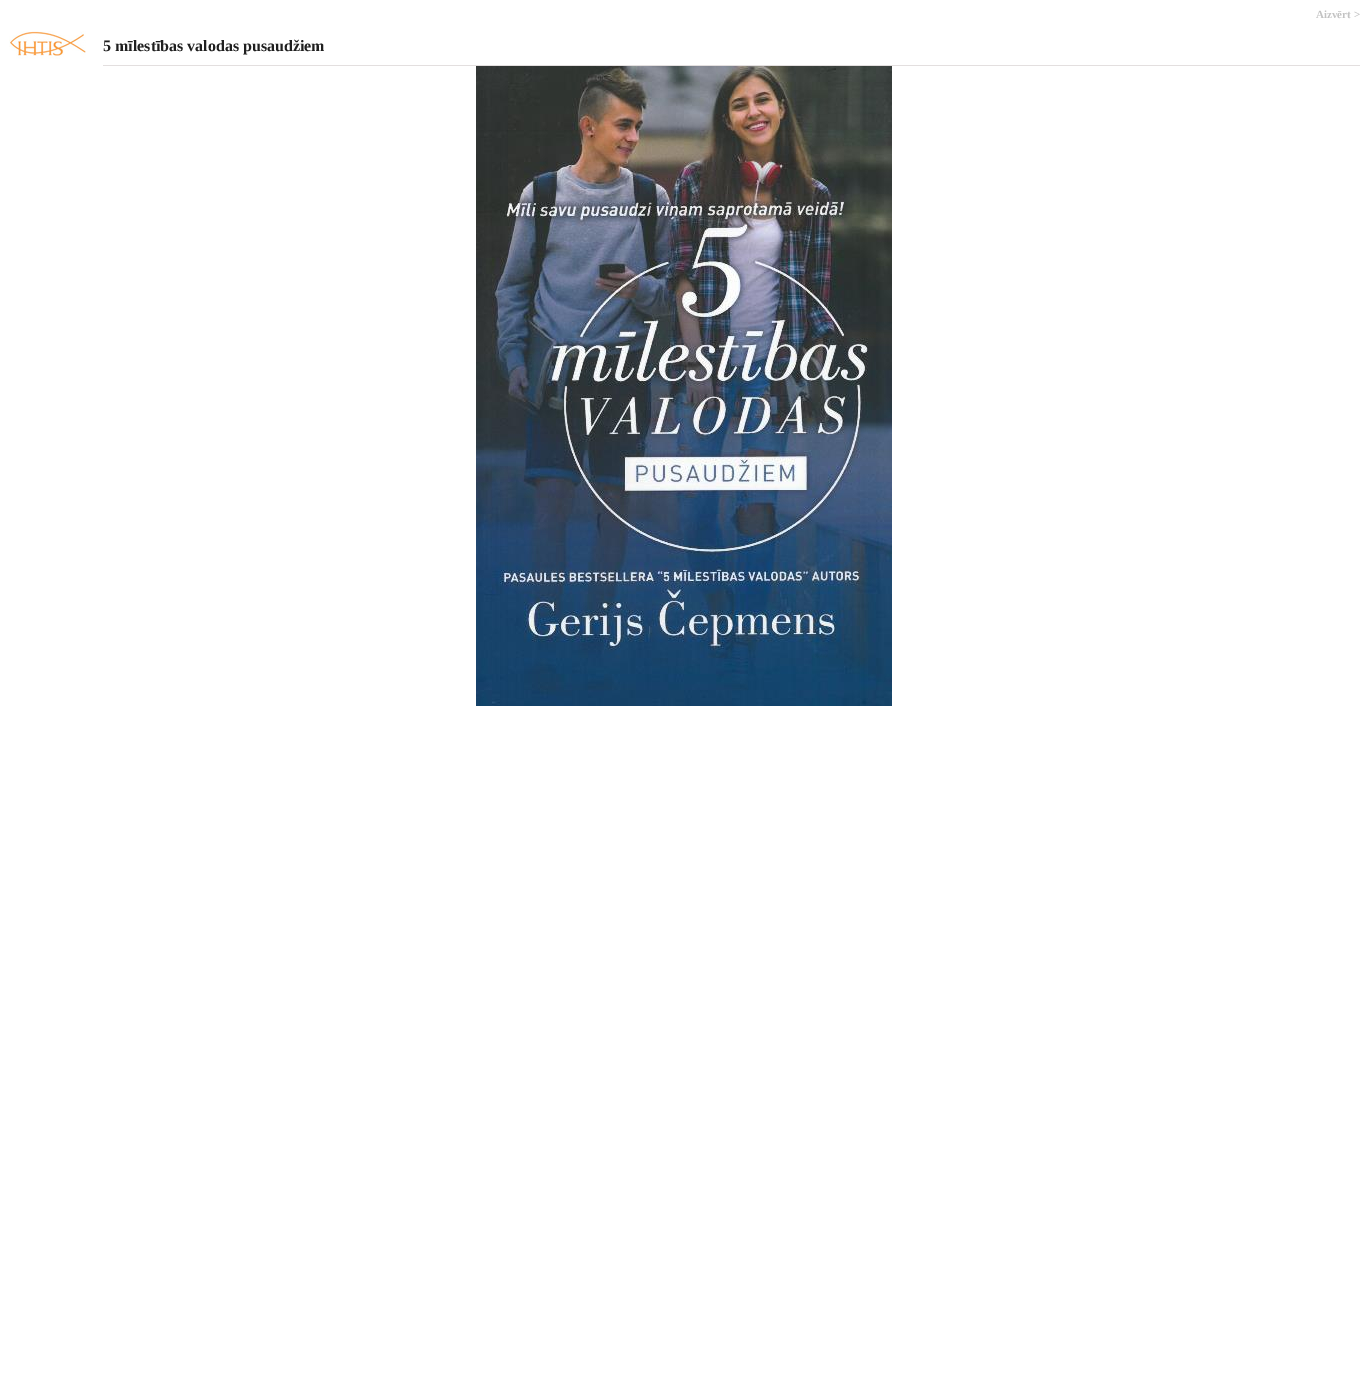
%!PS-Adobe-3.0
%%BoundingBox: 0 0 1368 1377
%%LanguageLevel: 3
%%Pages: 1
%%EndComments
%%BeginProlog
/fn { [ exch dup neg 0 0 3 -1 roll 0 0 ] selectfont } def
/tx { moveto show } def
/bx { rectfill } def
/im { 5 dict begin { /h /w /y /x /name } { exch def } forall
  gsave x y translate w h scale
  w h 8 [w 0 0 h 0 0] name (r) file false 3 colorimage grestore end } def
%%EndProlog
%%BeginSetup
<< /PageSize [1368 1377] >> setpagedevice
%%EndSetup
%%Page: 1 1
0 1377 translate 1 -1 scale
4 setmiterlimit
1 setgray
0 0 1368 1377 bx
(image0.raw) 9 31 77 28 im
0.89 0.875 0.875 setrgbcolor
103 65 1257 1 bx
/LiberationSerif-Bold 11 fn
0.765 setgray
(Aizvērt >) 1316 18 tx
/LiberationSerif-Bold 16 fn
0.125 setgray
(5 mīlestības valodas pusaudžiem) 103 51 tx
(image1.raw) 476 66 416 640 im
showpage
%%EOF
